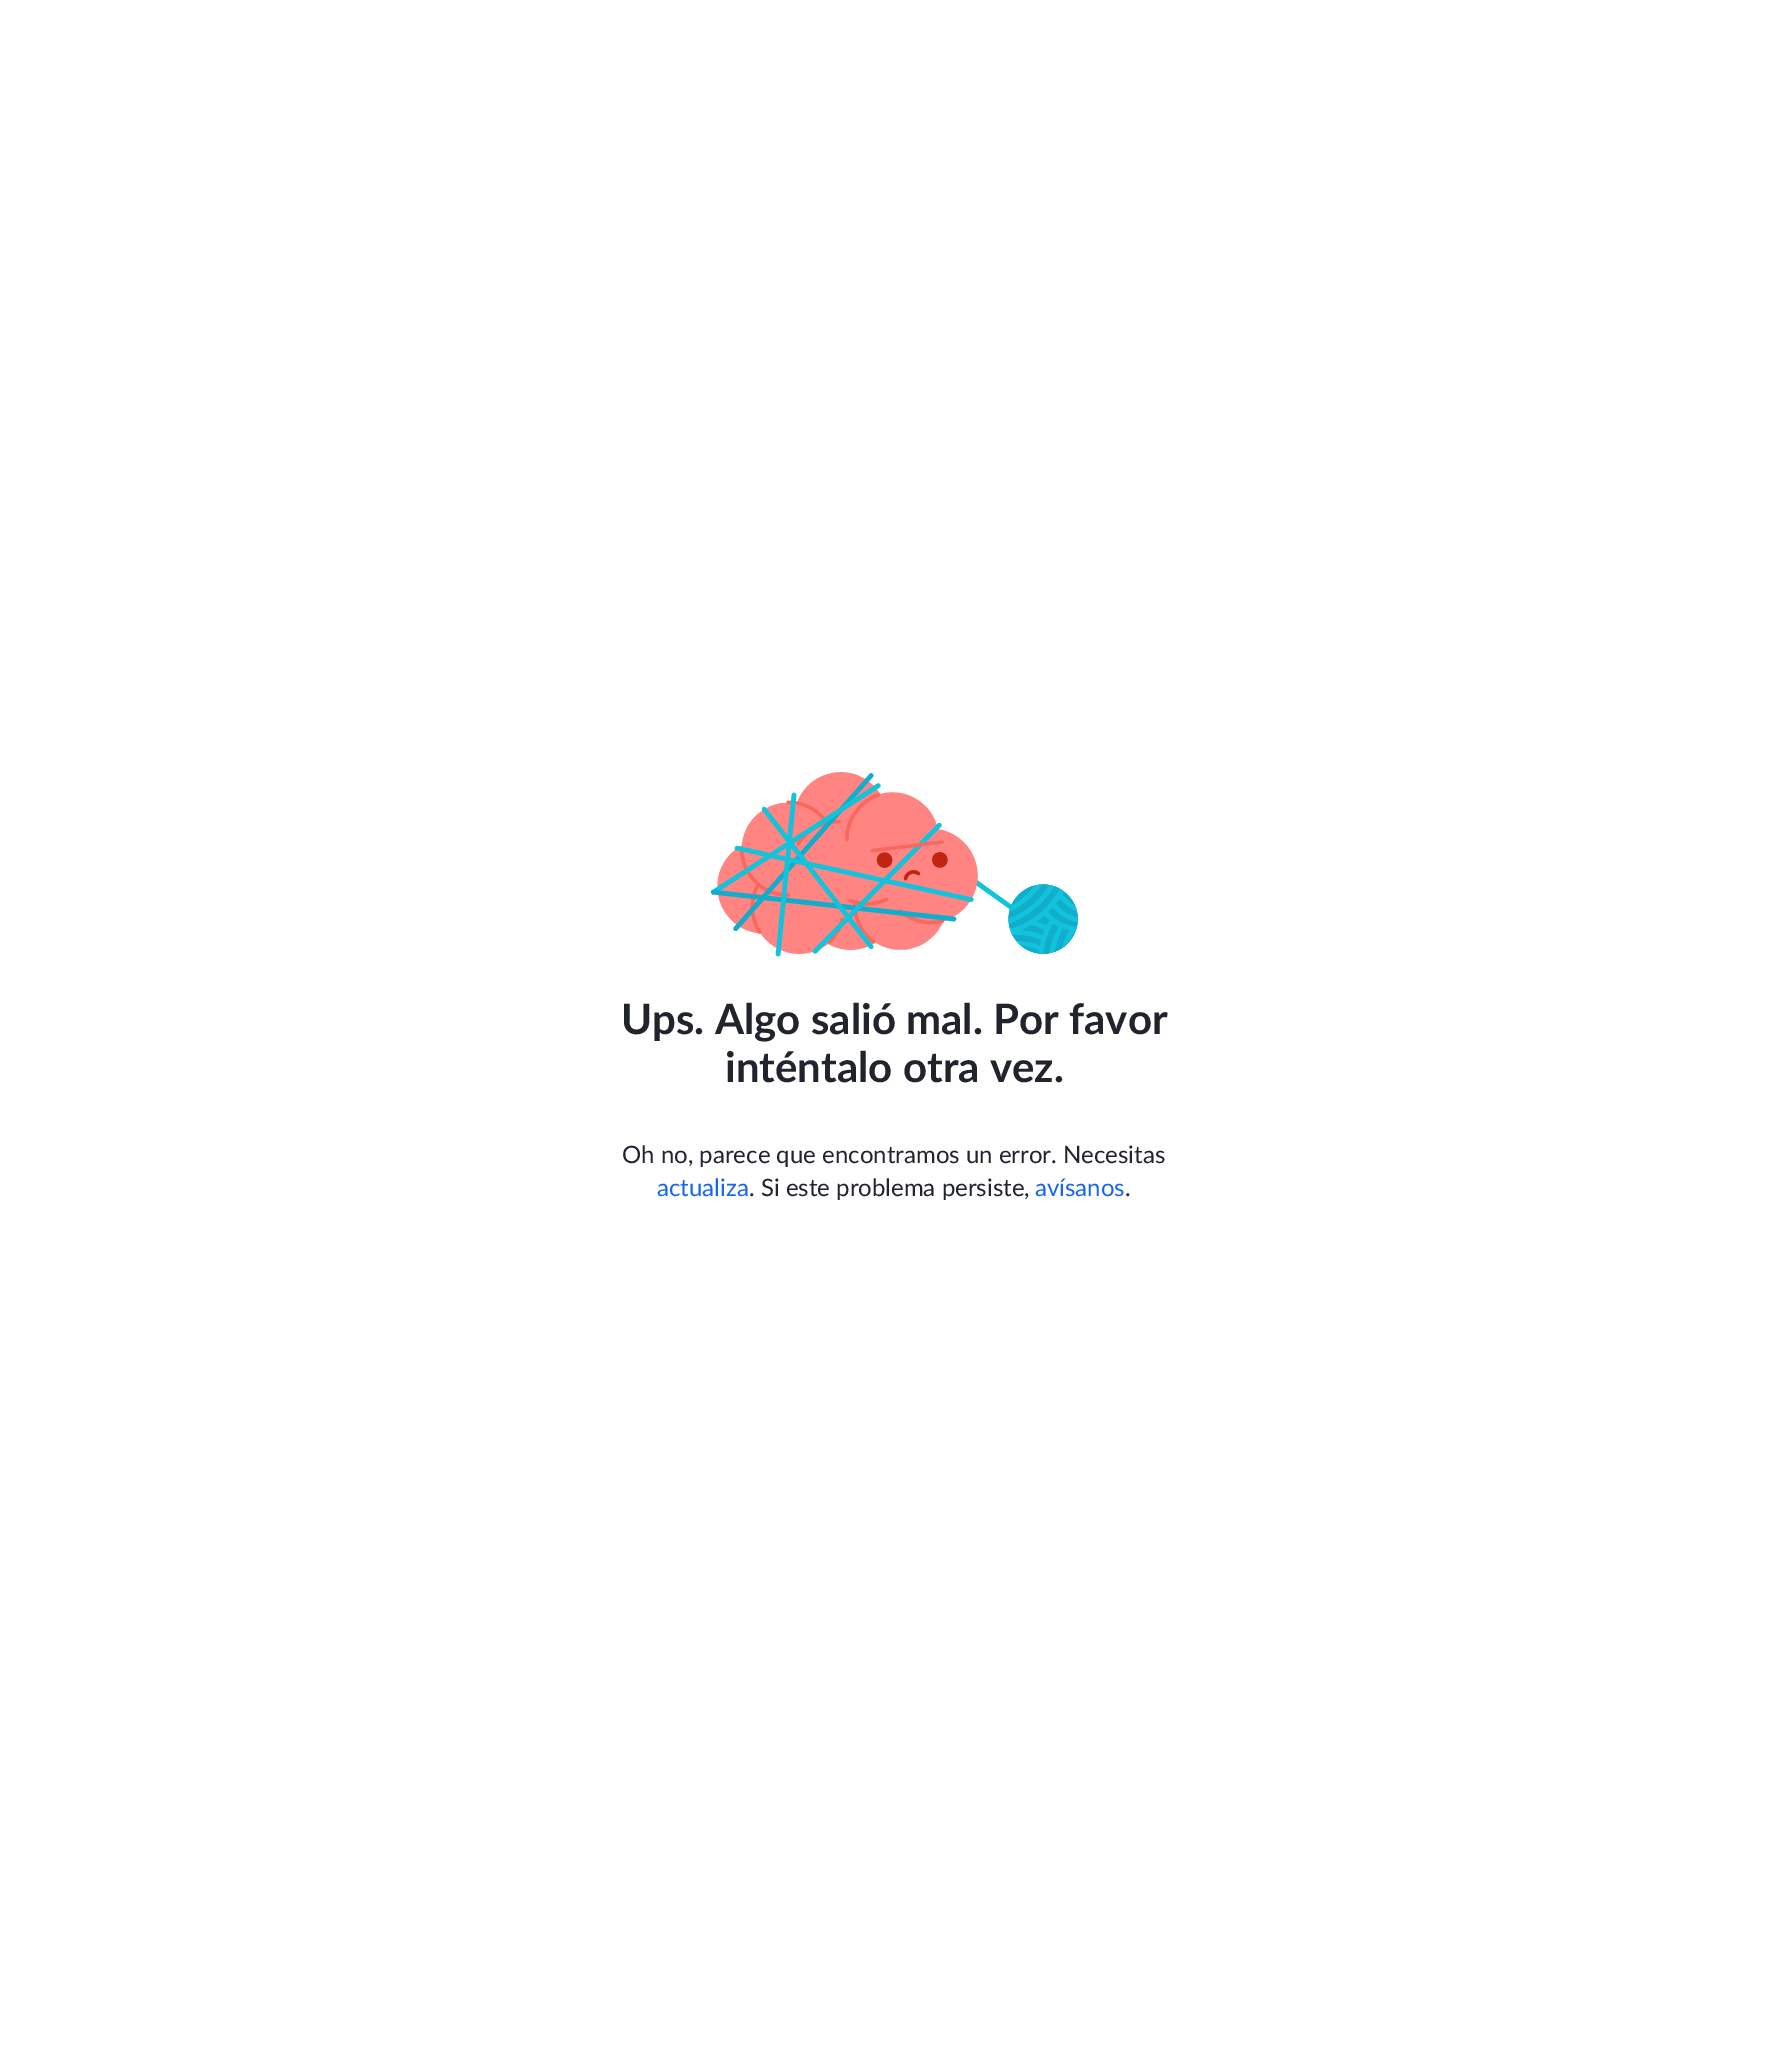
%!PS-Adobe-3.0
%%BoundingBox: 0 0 1787 2064
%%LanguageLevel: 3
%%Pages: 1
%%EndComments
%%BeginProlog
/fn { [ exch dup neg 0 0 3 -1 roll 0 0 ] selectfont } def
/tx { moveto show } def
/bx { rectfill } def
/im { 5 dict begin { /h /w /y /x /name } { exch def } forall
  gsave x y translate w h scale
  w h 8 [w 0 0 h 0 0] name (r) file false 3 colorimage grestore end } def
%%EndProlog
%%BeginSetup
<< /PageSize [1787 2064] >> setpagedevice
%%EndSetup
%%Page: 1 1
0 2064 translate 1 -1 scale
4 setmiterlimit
1 setgray
0 0 1787 2064 bx
(image0.raw) 711 772 367 185 im
/Lato-Bold 42 fn
0.129 0.141 0.173 setrgbcolor
(Ups. Algo salió mal. Por favor) 621 1034 tx
(inténtalo otra vez.) 725 1082 tx
/Lato-Regular 24 fn
(Oh no, parece que encontramos un error. Necesitas) 622 1163 tx
0.094 0.396 0.949 setrgbcolor
(actualiza) 657 1196 tx
0.129 0.141 0.173 setrgbcolor
(. Si este problema persiste,) 749 1196 tx
0.094 0.396 0.949 setrgbcolor
(avísanos) 1035 1196 tx
0.129 0.141 0.173 setrgbcolor
(.) 1125 1196 tx
showpage
%%EOF
